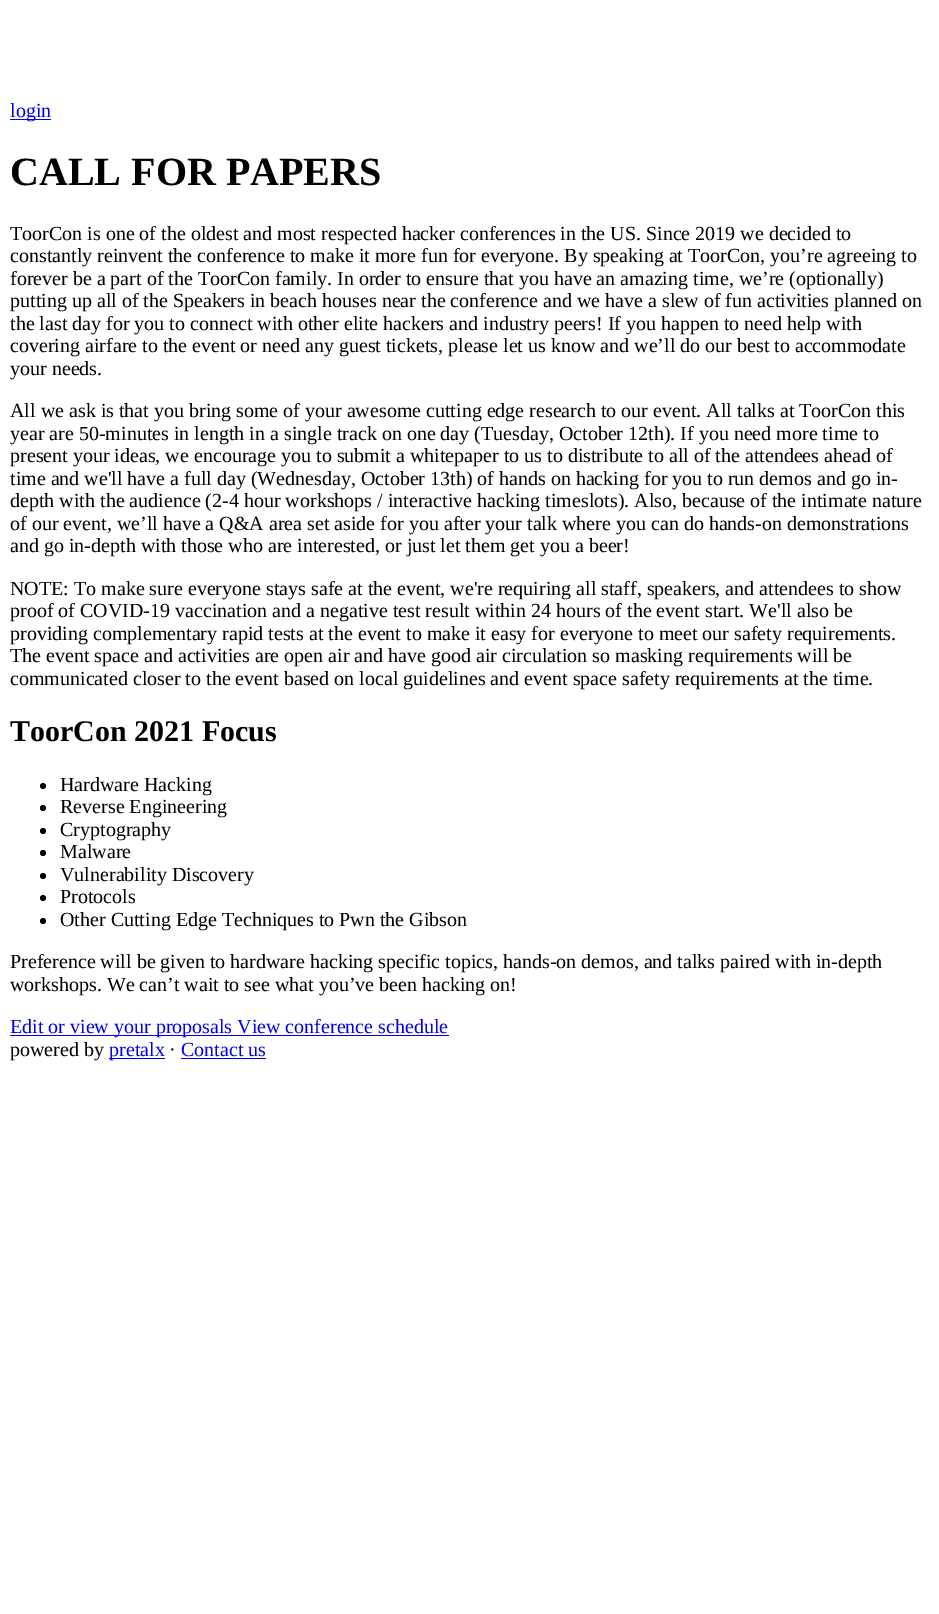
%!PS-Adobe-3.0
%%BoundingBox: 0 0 939 1614
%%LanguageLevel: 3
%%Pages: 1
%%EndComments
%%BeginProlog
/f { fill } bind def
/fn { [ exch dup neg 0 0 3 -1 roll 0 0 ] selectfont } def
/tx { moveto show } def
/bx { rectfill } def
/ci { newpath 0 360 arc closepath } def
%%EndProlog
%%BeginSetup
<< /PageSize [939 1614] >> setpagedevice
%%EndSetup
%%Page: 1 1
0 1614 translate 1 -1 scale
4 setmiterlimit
1 setgray
0 0 939 1614 bx
0 0 0.933 setrgbcolor
10 119 41 1 bx
/LiberationSerif-Regular 20 fn
(login) 10 117 tx
/LiberationSerif-Bold 40 fn
0 setgray
(CALL FOR PAPERS) 10 185 tx
/LiberationSerif-Regular 20 fn
(ToorCon is one of the oldest and most respected hacker conferences in the US. Since 2019 we decided to) 10 240 tx
(constantly reinvent the conference to make it more fun for everyone. By speaking at ToorCon, you’re agreeing to) 10 262 tx
(forever be a part of the ToorCon family. In order to ensure that you have an amazing time, we’re \(optionally\)) 10 285 tx
(putting up all of the Speakers in beach houses near the conference and we have a slew of fun activities planned on) 10 307 tx
(the last day for you to connect with other elite hackers and industry peers! If you happen to need help with) 10 330 tx
(covering airfare to the event or need any guest tickets, please let us know and we’ll do our best to accommodate) 10 352 tx
(your needs.) 10 375 tx
(All we ask is that you bring some of your awesome cutting edge research to our event. All talks at ToorCon this) 10 417 tx
(year are 50-minutes in length in a single track on one day \(Tuesday, October 12th\). If you need more time to) 10 440 tx
(present your ideas, we encourage you to submit a whitepaper to us to distribute to all of the attendees ahead of) 10 462 tx
(time and we'll have a full day \(Wednesday, October 13th\) of hands on hacking for you to run demos and go in-) 10 485 tx
(depth with the audience \(2-4 hour workshops / interactive hacking timeslots\). Also, because of the intimate nature) 10 507 tx
(of our event, we’ll have a Q&A area set aside for you after your talk where you can do hands-on demonstrations) 10 530 tx
(and go in-depth with those who are interested, or just let them get you a beer!) 10 552 tx
(NOTE: To make sure everyone stays safe at the event, we're requiring all staff, speakers, and attendees to show) 10 595 tx
(proof of COVID-19 vaccination and a negative test result within 24 hours of the event start. We'll also be) 10 617 tx
(providing complementary rapid tests at the event to make it easy for everyone to meet our safety requirements.) 10 640 tx
(The event space and activities are open air and have good air circulation so masking requirements will be) 10 662 tx
(communicated closer to the event based on local guidelines and event space safety requirements at the time.) 10 685 tx
/LiberationSerif-Bold 30 fn
(ToorCon 2021 Focus) 10 741 tx
43 786 3 ci f
/LiberationSerif-Regular 20 fn
(Hardware Hacking) 60 791 tx
43 808 3 ci f
(Reverse Engineering) 60 813 tx
43 831 3 ci f
(Cryptography) 60 836 tx
43 853 3 ci f
(Malware) 60 858 tx
43 876 3 ci f
(Vulnerability Discovery) 60 881 tx
43 898 3 ci f
(Protocols) 60 903 tx
43 921 3 ci f
(Other Cutting Edge Techniques to Pwn the Gibson) 60 926 tx
(Preference will be given to hardware hacking specific topics, hands-on demos, and talks paired with in-depth) 10 968 tx
(workshops. We can’t wait to see what you’ve been hacking on!) 10 991 tx
0 0 0.933 setrgbcolor
10 1035 439 1 bx
(Edit or view your proposals View conference schedule) 10 1033 tx
0 setgray
(powered by) 10 1056 tx
0 0 0.933 setrgbcolor
109 1058 56 1 bx
(pretalx) 109 1056 tx
0 setgray
(·) 169 1056 tx
0 0 0.933 setrgbcolor
(Contact us) 181 1056 tx
181 1058 85 1 bx
showpage
%%EOF
